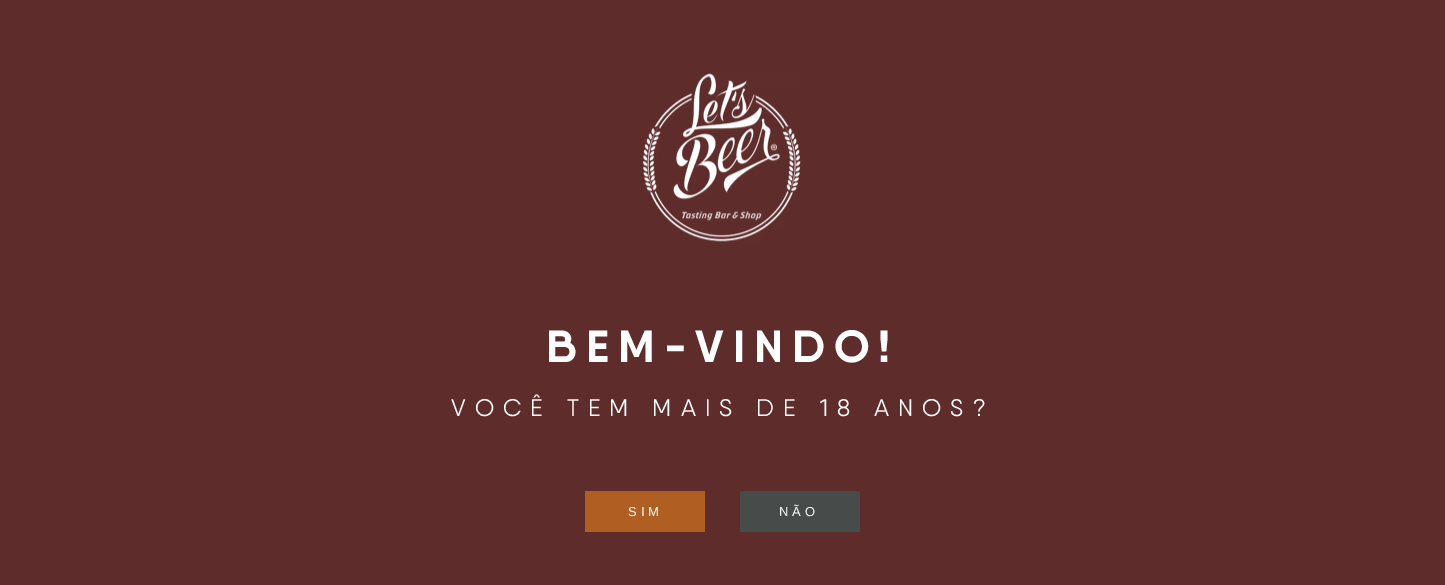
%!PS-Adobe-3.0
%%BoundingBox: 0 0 1445 585
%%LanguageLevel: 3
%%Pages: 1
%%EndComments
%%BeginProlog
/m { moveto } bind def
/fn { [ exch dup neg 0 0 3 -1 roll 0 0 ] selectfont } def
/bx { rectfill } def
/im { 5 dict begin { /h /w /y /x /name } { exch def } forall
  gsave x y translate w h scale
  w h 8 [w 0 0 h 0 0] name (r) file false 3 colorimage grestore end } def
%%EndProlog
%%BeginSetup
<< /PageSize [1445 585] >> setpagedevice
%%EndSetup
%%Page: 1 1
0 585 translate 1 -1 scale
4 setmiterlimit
0.373 0.173 0.173 setrgbcolor
0 0 1445 585 bx
(image0.raw) 643 73 158 169 im
/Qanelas-Bold 45 fn
1 setgray
546 362 m 9 0 (BEM-VINDO!) ashow
/Qanelas-Regular 24 fn
451 416 m 9 0 (VOCÊ TEM MAIS DE 18 ANOS?) ashow
0.69 0.369 0.129 setrgbcolor
585 491 120 41 bx
/LiberationSans-Regular 13 fn
1 setgray
628 516 m 4 0 (SIM) ashow
0.278 0.294 0.29 setrgbcolor
740 491 120 41 bx
1 setgray
779 516 m 4 0 (NÃO) ashow
showpage
%%EOF
